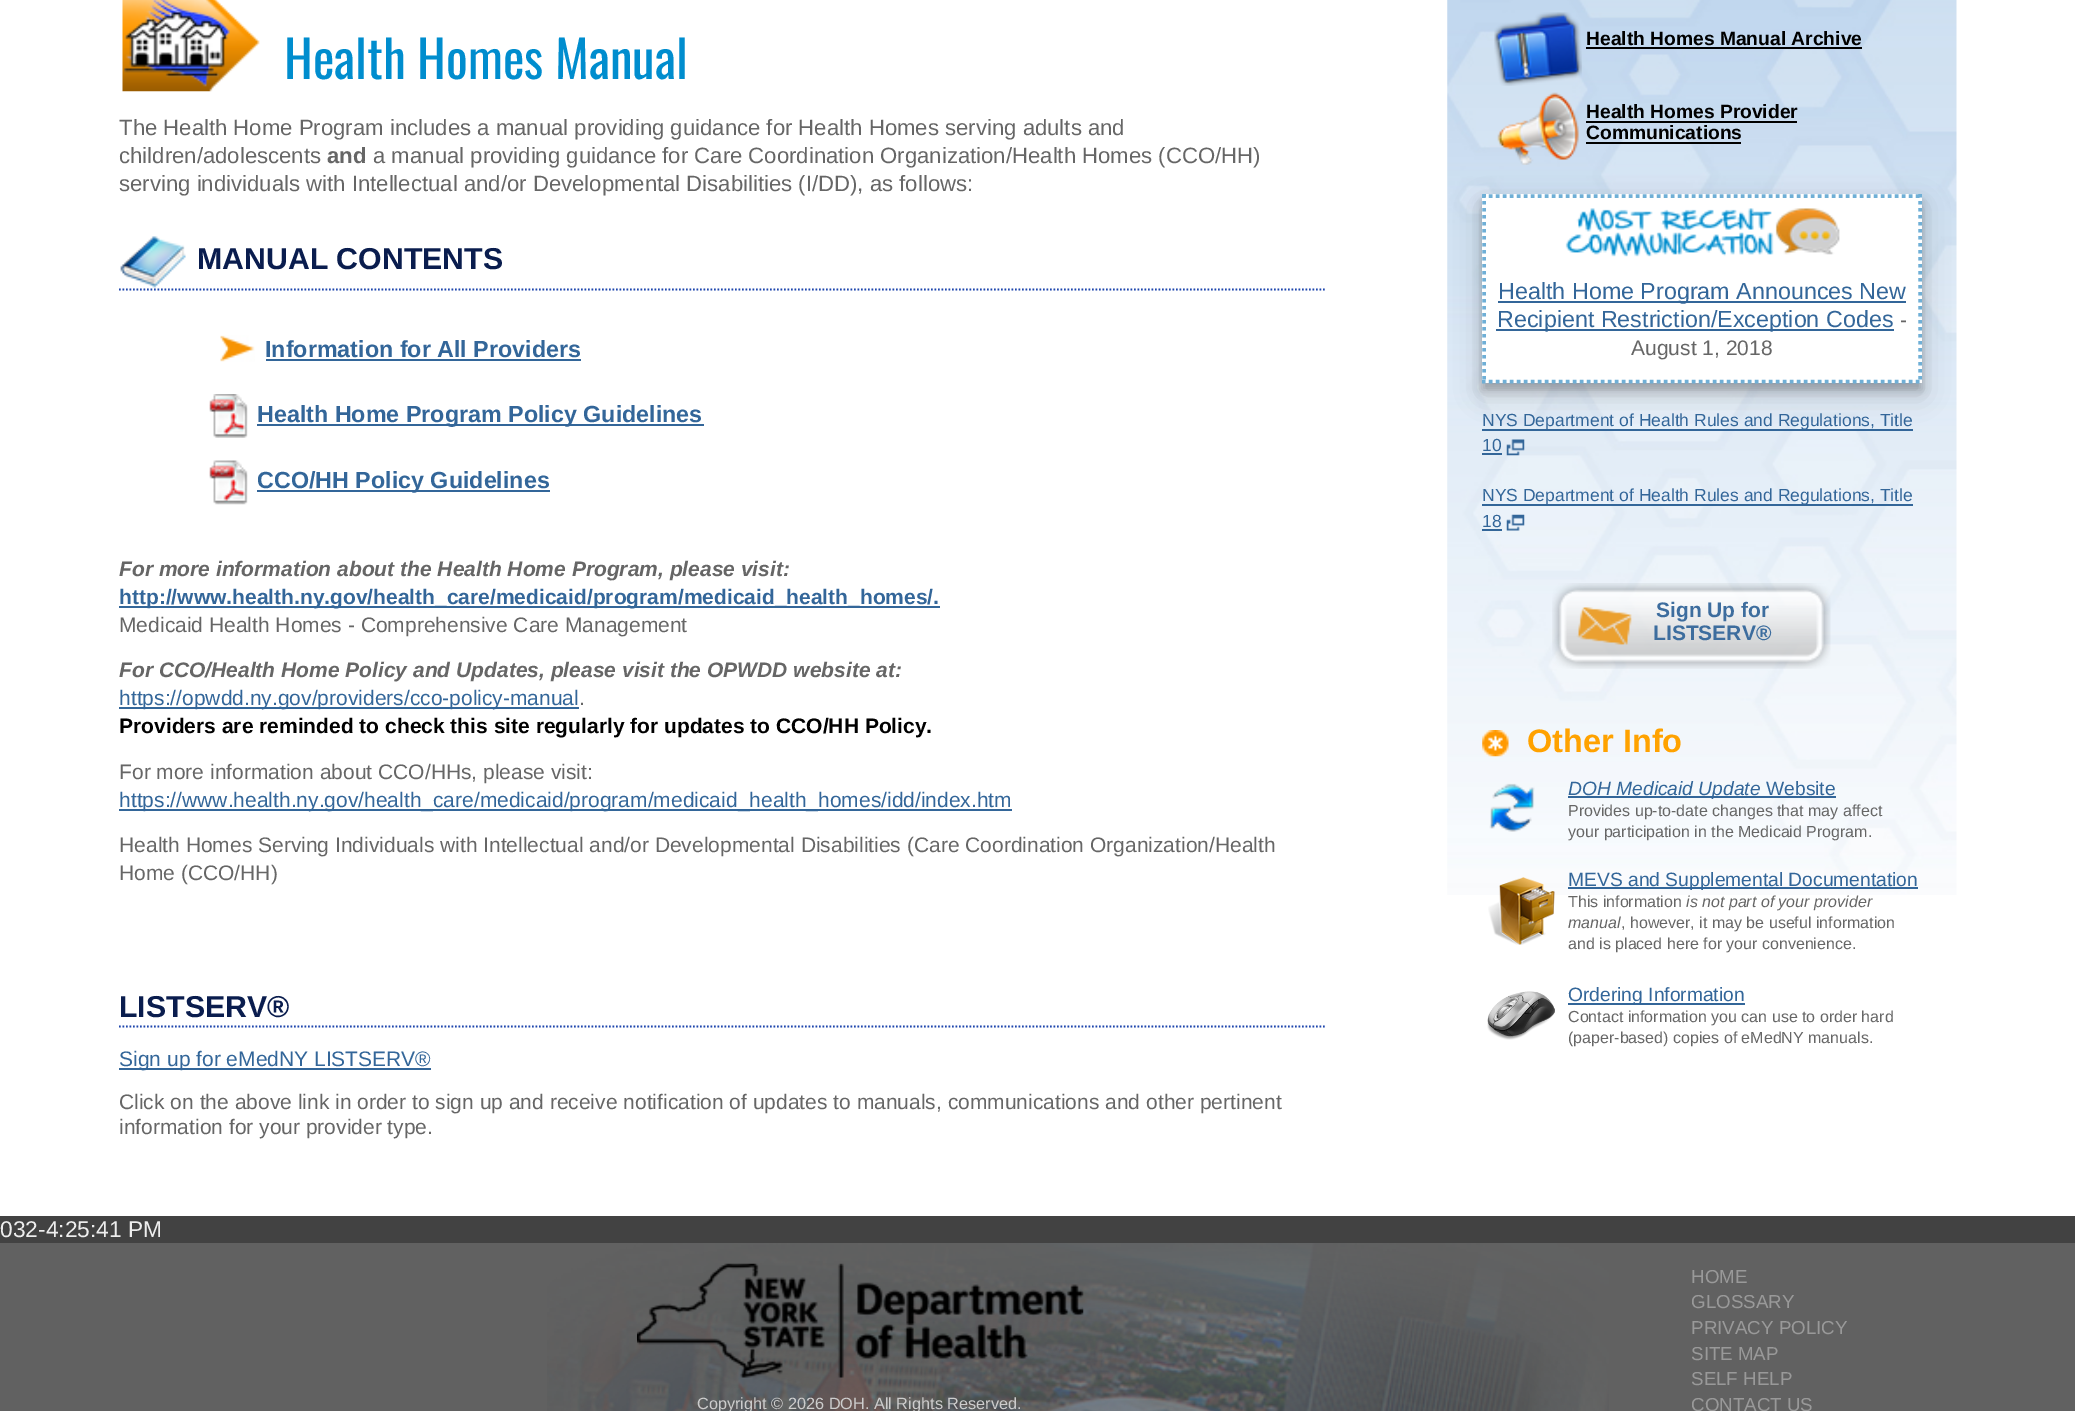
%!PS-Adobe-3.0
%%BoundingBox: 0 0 2075 1411
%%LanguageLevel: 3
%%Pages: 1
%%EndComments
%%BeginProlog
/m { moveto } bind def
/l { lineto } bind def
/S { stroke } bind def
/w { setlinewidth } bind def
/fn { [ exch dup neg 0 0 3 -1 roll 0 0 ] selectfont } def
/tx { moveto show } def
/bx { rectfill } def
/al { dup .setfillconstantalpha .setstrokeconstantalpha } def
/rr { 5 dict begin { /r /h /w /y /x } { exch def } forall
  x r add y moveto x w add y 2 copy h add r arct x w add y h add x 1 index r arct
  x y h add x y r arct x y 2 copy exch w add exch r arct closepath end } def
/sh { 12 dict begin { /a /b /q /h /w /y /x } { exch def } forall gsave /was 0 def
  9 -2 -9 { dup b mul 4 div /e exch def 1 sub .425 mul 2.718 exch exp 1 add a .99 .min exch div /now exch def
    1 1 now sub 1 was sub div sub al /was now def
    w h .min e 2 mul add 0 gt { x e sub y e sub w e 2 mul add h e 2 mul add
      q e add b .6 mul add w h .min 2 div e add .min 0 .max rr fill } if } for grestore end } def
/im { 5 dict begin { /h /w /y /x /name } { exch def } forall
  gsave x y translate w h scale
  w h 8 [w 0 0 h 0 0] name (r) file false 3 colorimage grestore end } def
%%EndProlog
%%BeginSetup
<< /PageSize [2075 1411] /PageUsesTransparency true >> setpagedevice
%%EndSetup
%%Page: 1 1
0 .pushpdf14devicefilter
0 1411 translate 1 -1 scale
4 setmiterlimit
1 setgray
0 0 2075 1411 bx
(image0.raw) 122 0 138 92 im
/Oswald-Regular 51.25 fn
0 0.553 0.808 setrgbcolor
(Health Homes Manual) 284 79 tx
/LiberationSans-Regular 22.15 fn
0.4 setgray
(The Health Home Program includes a manual providing guidance for Health Homes serving adults and) 119 135 tx
(children/adolescents) 119 163 tx
/LiberationSans-Bold 22.15 fn
(and) 327 163 tx
/LiberationSans-Regular 22.15 fn
(a manual providing guidance for Care Coordination Organization/Health Homes \(CCO/HH\)) 373 163 tx
(serving individuals with Intellectual and/or Developmental Disabilities \(I/DD\), as follows:) 119 191 tx
0.118 0.275 0.678 setrgbcolor
1.8 w
[1.75 1.75] 0 setdash
119 289.5 m 1326.5 289.5 l S
(image1.raw) 120 236 66 52 im
/LiberationSans-Bold 30.25 fn
0.039 0.114 0.306 setrgbcolor
(MANUAL CONTENTS) 197 269 tx
(image2.raw) 220 335 35 27 im
/LiberationSans-Bold 23.3 fn
0.2 0.4 0.6 setrgbcolor
(Information for All Providers) 265 357 tx
266 359 315 2 bx
(image3.raw) 209 394 39 44 im
257 424 447 2 bx
(Health Home Program Policy Guidelines) 257 422 tx
(image4.raw) 209 460 39 45 im
257 490 293 2 bx
(CCO/HH Policy Guidelines) 257 488 tx
/LiberationSans-BoldItalic 21 fn
0.4 setgray
(For more information about the Health Home Program, please visit:) 119 576 tx
0.2 0.4 0.6 setrgbcolor
119 606 821 2 bx
/LiberationSans-Bold 21 fn
(http://www.health.ny.gov/health_care/medicaid/program/medicaid_health_homes/.) 119 604 tx
/LiberationSans-Regular 21 fn
0.4 setgray
(Medicaid Health Homes - Comprehensive Care Management) 119 632 tx
/LiberationSans-BoldItalic 21 fn
(For CCO/Health Home Policy and Updates, please visit the OPWDD website at:) 119 677 tx
0.2 0.4 0.6 setrgbcolor
119 707 460 2 bx
/LiberationSans-Regular 21 fn
(https://opwdd.ny.gov/providers/cco-policy-manual) 119 705 tx
0.4 setgray
(.) 579 705 tx
/LiberationSans-Bold 21 fn
0 setgray
(Providers are reminded to check this site regularly for updates to CCO/HH Policy.) 119 733 tx
/LiberationSans-Regular 21 fn
0.4 setgray
(For more information about CCO/HHs, please visit:) 119 779 tx
0.2 0.4 0.6 setrgbcolor
119 809 893 2 bx
(https://www.health.ny.gov/health_care/medicaid/program/medicaid_health_homes/idd/index.htm) 119 807 tx
0.4 setgray
(Health Homes Serving Individuals with Intellectual and/or Developmental Disabilities \(Care Coordination Organization/Health) 119 852 tx
(Home \(CCO/HH\)) 119 880 tx
0.118 0.275 0.678 setrgbcolor
119 1026.5 m 1326.5 1026.5 l S
/LiberationSans-Bold 30.25 fn
0.039 0.114 0.306 setrgbcolor
(LISTSERV®) 119 1017 tx
0.2 0.4 0.6 setrgbcolor
119 1068 312 2 bx
/LiberationSans-Regular 21 fn
(Sign up for eMedNY LISTSERV®) 119 1066 tx
0.4 setgray
(Click on the above link in order to sign up and receive notification of updates to manuals, communications and other pertinent) 119 1109 tx
(information for your provider type.) 119 1134 tx
(image5.raw) 1447 0 510 895 im
(image6.raw) 1494 12 88 74 im
/LiberationSans-Bold 19.25 fn
0 setgray
(Health Homes Manual Archive) 1586 45 tx
1586 47 276 2 bx
(image7.raw) 1497 92 82 73 im
(Health Homes Provider) 1586 118 tx
1586 121 211 2 bx
(Communications) 1586 139 tx
1586 142 155 2 bx
1482 205 440 189 0 13 0.19 sh
1482 201 440 189 0 4.5 0.2 sh
1 setgray
1482 194 440 189 bx
0.435 0.686 0.839 setrgbcolor
3.5 w
[3.5 3.5] 0 setdash
1482 196 m 1921.5 196 l S
1920 194 m 1920 383 l S
1482 381.5 m 1921.5 381.5 l S
1484 194 m 1484 383 l S
(image8.raw) 1565 208 275 49 im
0.2 0.4 0.6 setrgbcolor
1498 301 408 2 bx
/LiberationSans-Regular 23.3 fn
(Health Home Program Announces New) 1498 299 tx
1496 329 398 2 bx
(Recipient Restriction/Exception Codes) 1497 327 tx
/LiberationSans-Regular 21 fn
0.4 setgray
(-) 1900 327 tx
(August 1, 2018) 1631 355 tx
0.2 0.4 0.6 setrgbcolor
1482 429 431 2 bx
/LiberationSans-Regular 17.5 fn
(NYS Department of Health Rules and Regulations, Title) 1482 426 tx
(10) 1482 451 tx
1482 453 20 2 bx
(image9.raw) 1506 439 19 17 im
1482 504 431 2 bx
(NYS Department of Health Rules and Regulations, Title) 1482 501 tx
(18) 1482 527 tx
1482 529 20 2 bx
(image10.raw) 1506 514 19 17 im
(image11.raw) 1552 583 279 86 im
/LiberationSans-Bold 21 fn
0.239 0.427 0.62 setrgbcolor
(Sign Up for) 1656 617 tx
(LISTSERV®) 1653 640 tx
(image12.raw) 1482 730 27 27 im
/LiberationSans-Bold 32.5 fn
1 0.635 0 setrgbcolor
(Other Info) 1527 752 tx
(image13.raw) 1489 783 46 49 im
0.2 0.4 0.6 setrgbcolor
1568 796 268 2 bx
/LiberationSans-Italic 19.25 fn
(DOH Medicaid Update) 1568 795 tx
/LiberationSans-Regular 19.25 fn
(Website) 1766 795 tx
/LiberationSans-Regular 16 fn
0.4 setgray
(Provides up-to-date changes that may affect) 1568 816 tx
(your participation in the Medicaid Program.) 1568 837 tx
(image14.raw) 1488 877 67 68 im
0.2 0.4 0.6 setrgbcolor
1568 887 350 2 bx
/LiberationSans-Regular 19.25 fn
(MEVS and Supplemental Documentation) 1568 886 tx
/LiberationSans-Regular 16 fn
0.4 setgray
(This information) 1568 907 tx
/LiberationSans-Italic 16 fn
(is not part of your provider) 1686 907 tx
(manual) 1568 928 tx
/LiberationSans-Regular 16 fn
(, however, it may be useful information) 1621 928 tx
(and is placed here for your convenience.) 1568 949 tx
(image15.raw) 1487 991 68 49 im
0.2 0.4 0.6 setrgbcolor
1568 1003 177 2 bx
/LiberationSans-Regular 19.25 fn
(Ordering Information) 1568 1001 tx
/LiberationSans-Regular 16 fn
0.4 setgray
(Contact information you can use to order hard) 1568 1022 tx
(\(paper-based\) copies of eMedNY manuals.) 1568 1043 tx
0.259 setgray
0 1216 2075 27 bx
/LiberationSans-Regular 22.75 fn
0.933 setgray
(032-4:25:41 PM) 0 1237 tx
0.38 setgray
0 1243 2075 168 bx
(image16.raw) 547 1243 1062 168 im
(image17.raw) 637 1263 447 115 im
/LiberationSans-Regular 16.3 fn
0.8 setgray
(Copyright © 2026 DOH. All Rights Reserved.) 697 1409 tx
/LiberationSans-Regular 18.75 fn
0.6 setgray
(HOME) 1691 1283 tx
(GLOSSARY) 1691 1308 tx
(PRIVACY POLICY) 1691 1334 tx
(SITE MAP) 1691 1360 tx
(SELF HELP) 1691 1385 tx
(CONTACT US) 1691 1411 tx
.poppdf14devicefilter showpage
%%EOF
